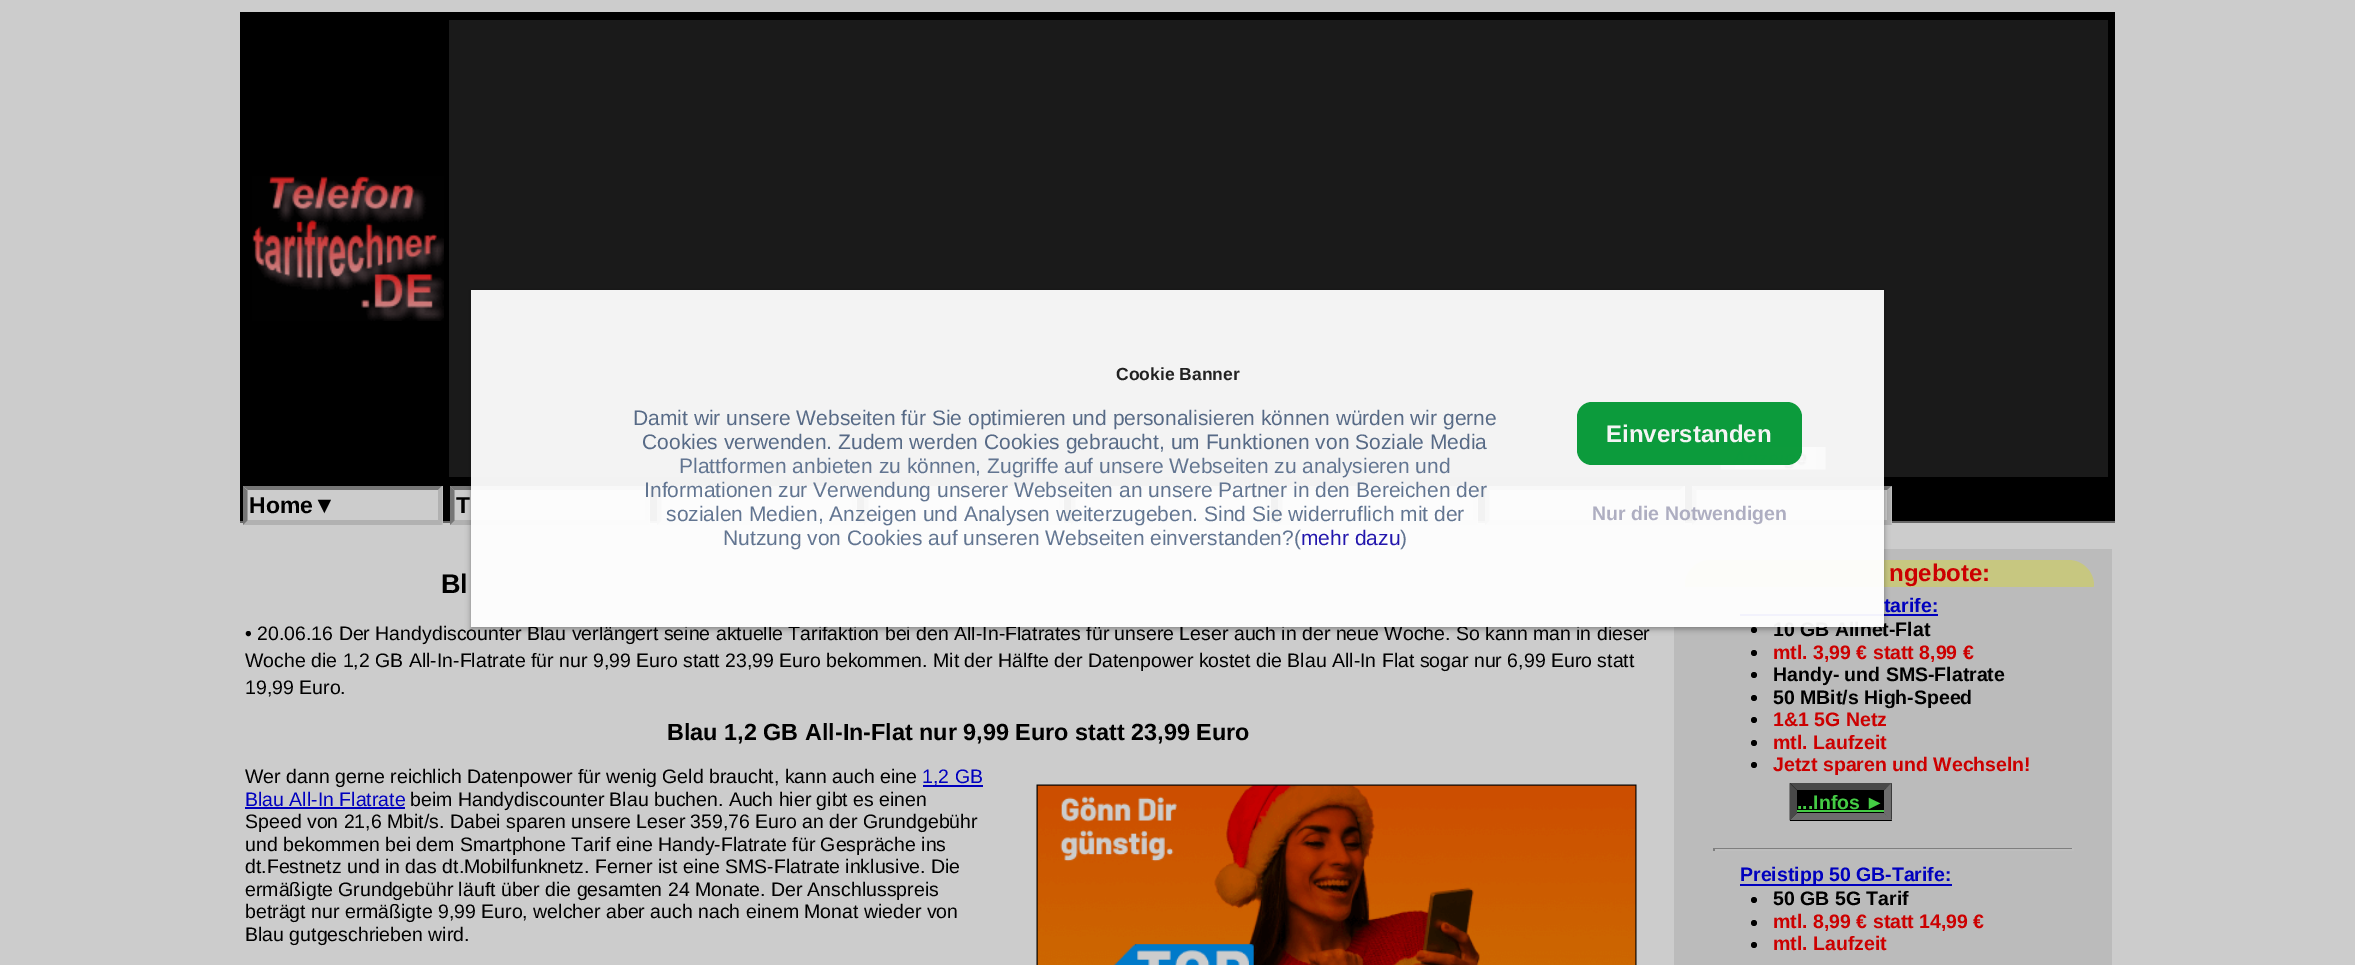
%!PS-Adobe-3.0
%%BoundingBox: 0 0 2355 965
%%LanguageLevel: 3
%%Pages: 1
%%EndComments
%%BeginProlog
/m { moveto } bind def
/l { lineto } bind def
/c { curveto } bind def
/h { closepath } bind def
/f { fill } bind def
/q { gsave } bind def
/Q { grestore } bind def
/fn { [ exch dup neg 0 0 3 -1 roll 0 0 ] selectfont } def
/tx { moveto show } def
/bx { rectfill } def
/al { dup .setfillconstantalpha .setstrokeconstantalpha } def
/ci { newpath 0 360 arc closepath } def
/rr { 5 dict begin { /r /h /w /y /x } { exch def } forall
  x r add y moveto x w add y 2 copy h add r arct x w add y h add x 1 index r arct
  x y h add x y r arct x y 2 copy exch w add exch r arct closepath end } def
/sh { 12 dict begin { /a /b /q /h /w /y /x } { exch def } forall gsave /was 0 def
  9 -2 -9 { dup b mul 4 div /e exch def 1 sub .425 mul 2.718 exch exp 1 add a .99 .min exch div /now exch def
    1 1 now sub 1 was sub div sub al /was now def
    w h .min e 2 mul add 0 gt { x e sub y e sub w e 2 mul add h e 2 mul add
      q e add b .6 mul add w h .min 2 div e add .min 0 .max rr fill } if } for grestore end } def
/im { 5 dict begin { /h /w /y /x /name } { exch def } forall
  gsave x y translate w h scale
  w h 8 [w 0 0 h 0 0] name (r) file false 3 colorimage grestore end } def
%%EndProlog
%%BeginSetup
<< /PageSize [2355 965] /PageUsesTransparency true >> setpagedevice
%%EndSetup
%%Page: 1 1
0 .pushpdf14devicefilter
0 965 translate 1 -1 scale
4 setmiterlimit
0.8 setgray
0 0 2355 965 bx
0.733 setgray
1674 549 438 416 bx
0.78 0.78 0.502 setrgbcolor
1710.5 560 m 2068.5 560 l 2082.5 560 2094 571.5 2094 585.5 c 2094 586.5 2093.5 587 2092.5 587 c 1686.5 587 l 1685.5 587 1685 586.5 1685 585.5 c 1685 571.5 1696.5 560 1710.5 560 c h f
0 0 0.745 setrgbcolor
1740 614 198 2 bx
0 setgray
1754 630 3 ci f
240 12 1875 509 bx
0.4 setgray
240 521 1875 2 bx
0.102 setgray
449 20 1659 457 bx
(image2.raw) 1720 447 106 23 im
0.8 setgray
450 486 200 37 bx
0.463 setgray
450 486 m 650 486 l 645 490 l 454 490 l h f
0.694 setgray
649.5 486 m 649.5 525 l 645 520.5 l 645 490.5 l h f
650 525 m 450 525 l 454 520 l 645 520 l h f
0.8 setgray
657 486 200 37 bx
0.463 setgray
657 486 m 856 486 l 852 490 l 662 490 l h f
0.694 setgray
856.5 486 m 856.5 525 l 852 520.5 l 852 490.5 l h f
856 525 m 657 525 l 662 520 l 852 520 l h f
0.463 setgray
657 525 m 657 486 l 661.5 490.5 l 661.5 520.5 l h f
0.8 setgray
864 486 200 37 bx
0.463 setgray
864 486 m 1064 486 l 1059 490 l 868 490 l h f
0.694 setgray
1063.5 486 m 1063.5 525 l 1059 520.5 l 1059 490.5 l h f
1064 525 m 864 525 l 868 520 l 1059 520 l h f
0.463 setgray
864 525 m 864 486 l 868.5 490.5 l 868.5 520.5 l h f
0.8 setgray
1071 486 200 37 bx
0.463 setgray
1071 486 m 1270 486 l 1266 490 l 1076 490 l h f
0.694 setgray
1270.5 486 m 1270.5 525 l 1266 520.5 l 1266 490.5 l h f
1270 525 m 1071 525 l 1076 520 l 1266 520 l h f
0.463 setgray
1071 525 m 1071 486 l 1075.5 490.5 l 1075.5 520.5 l h f
0.8 setgray
1278 486 200 37 bx
0.463 setgray
1278 486 m 1478 486 l 1473 490 l 1282 490 l h f
0.694 setgray
1477.5 486 m 1477.5 525 l 1473 520.5 l 1473 490.5 l h f
1478 525 m 1278 525 l 1282 520 l 1473 520 l h f
0.463 setgray
1278 525 m 1278 486 l 1282.5 490.5 l 1282.5 520.5 l h f
0.8 setgray
1485 486 200 37 bx
0.463 setgray
1485 486 m 1684 486 l 1680 490 l 1490 490 l h f
0.694 setgray
1684.5 486 m 1684.5 525 l 1680 520.5 l 1680 490.5 l h f
1684 525 m 1485 525 l 1490 520 l 1680 520 l h f
0.463 setgray
1485 525 m 1485 486 l 1489.5 490.5 l 1489.5 520.5 l h f
0.8 setgray
1692 486 200 37 bx
0.463 setgray
1692 486 m 1892 486 l 1887 490 l 1696 490 l h f
0.694 setgray
1891.5 486 m 1891.5 525 l 1887 520.5 l 1887 490.5 l h f
1892 525 m 1692 525 l 1696 520 l 1887 520 l h f
0.463 setgray
1692 525 m 1692 486 l 1696.5 490.5 l 1696.5 520.5 l h f
q
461 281 m 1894 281 l 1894 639 l 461 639 l h 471 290 m 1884 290 l 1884 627 l 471 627 l h eoclip newpath
0.039 setgray
471 291 1413 338 0 3 0.38 sh
Q
/LiberationSans-Regular 19.5 fn
0 setgray
(• 20.06.16 Der Handydiscounter Blau verlängert seine aktuelle Tarifaktion bei den All-In-Flatrates für unsere Leser auch in der neue Woche. So kann man in dieser) 245 640 tx
/LiberationSans-Bold 19.5 fn
(10 GB Allnet-Flat) 1773 636 tx
0.95 al
1 setgray
471 290 1413 337 bx
/LiberationSans-Bold 17.5 fn
1 al
0.133 setgray
(Cookie Banner) 1116 380 tx
/LiberationSans-Regular 21 fn
0.341 0.416 0.525 setrgbcolor
(Damit wir unsere Webseiten für Sie optimieren und personalisieren können würden wir gerne) 633 425 tx
(Cookies verwenden. Zudem werden Cookies gebraucht, um Funktionen von Soziale Media) 642 449 tx
0.384 0.459 0.569 setrgbcolor
(Plattformen anbieten zu können, Zugriffe auf unsere Webseiten zu analysieren und) 679 473 tx
(Informationen zur Verwendung unserer Webseiten an unsere Partner in den Bereichen der) 644 497 tx
(sozialen Medien, Anzeigen und Analysen weiterzugeben. Sind Sie widerruflich mit der) 666 521 tx
(Nutzung von Cookies auf unseren Webseiten einverstanden?\() 723 545 tx
0.137 0.09 0.678 setrgbcolor
(mehr dazu) 1301 545 tx
0.384 0.459 0.569 setrgbcolor
(\)) 1400 545 tx
0.95 al
0 0.588 0.196 setrgbcolor
1577 402 225 63 15 rr f
/LiberationSans-Bold 24 fn
1 al
0.957 setgray
(Einverstanden) 1606 442 tx
/LiberationSans-Bold 19.5 fn
0.682 0.682 0.757 setrgbcolor
(Nur die Notwendigen) 1592 520 tx
/LiberationSans-Bold 27 fn
0 setgray
(Bl) 441 593 tx
/LiberationSans-Regular 19.5 fn
(Woche die 1,2 GB All-In-Flatrate für nur 9,99 Euro statt 23,99 Euro bekommen. Mit der Hälfte der Datenpower kostet die Blau All-In Flat sogar nur 6,99 Euro statt) 245 667 tx
(19,99 Euro.) 245 694 tx
/LiberationSans-Bold 23.4 fn
(Blau 1,2 GB All-In-Flat nur 9,99 Euro statt 23,99 Euro) 667 740 tx
/LiberationSans-Regular 19.5 fn
(Wer dann gerne reichlich Datenpower für wenig Geld braucht, kann auch eine) 245 783 tx
0 0 0.745 setrgbcolor
923 785 60 2 bx
(1,2 GB) 922 783 tx
(Blau All-In Flatrate) 245 806 tx
245 807 160 2 bx
0 setgray
(beim Handydiscounter Blau buchen. Auch hier gibt es einen) 410 806 tx
(image0.raw) 1036 784 601 181 im
(Speed von 21,6 Mbit/s. Dabei sparen unsere Leser 359,76 Euro an der Grundgebühr) 245 828 tx
(und bekommen bei dem Smartphone Tarif eine Handy-Flatrate für Gespräche ins) 245 851 tx
(dt.Festnetz und in das dt.Mobilfunknetz. Ferner ist eine SMS-Flatrate inklusive. Die) 245 873 tx
(ermäßigte Grundgebühr läuft über die gesamten 24 Monate. Der Anschlusspreis) 245 896 tx
(beträgt nur ermäßigte 9,99 Euro, welcher aber auch nach einem Monat wieder von) 245 918 tx
(Blau gutgeschrieben wird.) 245 941 tx
/LiberationSans-Bold 24 fn
0.8 0 0 setrgbcolor
(ngebote:) 1889 581 tx
/LiberationSans-Bold 19.5 fn
0 0 0.745 setrgbcolor
(tarife:) 1884 612 tx
0 setgray
1754 653 3 ci f
0.8 0 0 setrgbcolor
(mtl. 3,99 € statt 8,99 €) 1773 659 tx
0 setgray
1754 675 3 ci f
(Handy- und SMS-Flatrate) 1773 681 tx
1754 698 3 ci f
(50 MBit/s High-Speed) 1773 704 tx
1754 720 3 ci f
0.8 0 0 setrgbcolor
(1&1 5G Netz) 1773 726 tx
0 setgray
1754 743 3 ci f
0.8 0 0 setrgbcolor
(mtl. Laufzeit) 1773 749 tx
0 setgray
1754 765 3 ci f
0.8 0 0 setrgbcolor
(Jetzt sparen und Wechseln!) 1773 771 tx
0 setgray
1790 783 102 38 bx
0.267 0.8 0.267 setrgbcolor
(...Infos ►) 1797 809 tx
0.286 setgray
1790 783 m 1892 783 l 1884 790 l 1797 790 l h f
0.427 setgray
1891.5 783 m 1891.5 820.5 l 1884 813 l 1884 790.5 l h f
1892 820 m 1790 820 l 1797 813 l 1884 813 l h f
0.286 setgray
1789.5 820.5 m 1789.5 783 l 1797 790.5 l 1797 813 l h f
0.267 0.8 0.267 setrgbcolor
1797 810 87 2 bx
0.498 setgray
1713 848 360 1 bx
0.745 setgray
2072 848 2 3 bx
1713 849 360 2 bx
0.498 setgray
1713 848 2 3 bx
0 0 0.745 setrgbcolor
1740 884 212 2 bx
(Preistipp 50 GB-Tarife:) 1740 881 tx
0 setgray
1754 900 3 ci f
(50 GB 5G Tarif) 1773 905 tx
1754 923 3 ci f
0.8 0 0 setrgbcolor
(mtl. 8,99 € statt 14,99 €) 1773 928 tx
0 setgray
1754 945 3 ci f
0.8 0 0 setrgbcolor
(mtl. Laufzeit) 1773 950 tx
(image1.raw) 252 176 192 145 im
0.8 setgray
243 486 200 37 bx
0.463 setgray
243 486 m 442 486 l 438 490 l 248 490 l h f
0.694 setgray
442.5 486 m 442.5 525 l 438 520.5 l 438 490.5 l h f
442 525 m 243 525 l 248 520 l 438 520 l h f
0.463 setgray
243 525 m 243 486 l 247.5 490.5 l 247.5 520.5 l h f
/LiberationSans-Bold 23 fn
0 setgray
(Home▼) 249 513 tx
0.463 setgray
450 525 m 450 486 l 454.5 490.5 l 454.5 520.5 l h f
0 setgray
(T) 456 513 tx
.poppdf14devicefilter showpage
%%EOF
